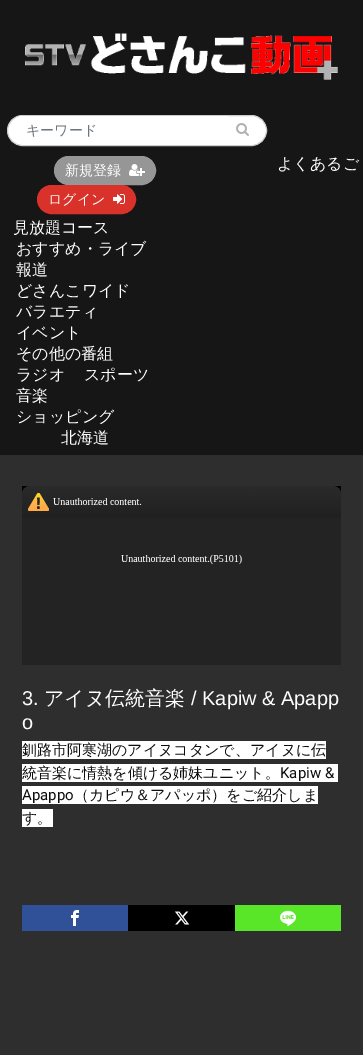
%!PS-Adobe-3.0
%%BoundingBox: 0 0 363 1055
%%LanguageLevel: 3
%%Pages: 1
%%EndComments
%%BeginProlog
/m { moveto } bind def
/l { lineto } bind def
/c { curveto } bind def
/h { closepath } bind def
/f { fill } bind def
/S { stroke } bind def
/q { gsave } bind def
/Q { grestore } bind def
/fn { [ exch dup neg 0 0 3 -1 roll 0 0 ] selectfont } def
/tx { moveto show } def
/bx { rectfill } def
/rr { 5 dict begin { /r /h /w /y /x } { exch def } forall
  x r add y moveto x w add y 2 copy h add r arct x w add y h add x 1 index r arct
  x y h add x y r arct x y 2 copy exch w add exch r arct closepath end } def
/im { 5 dict begin { /h /w /y /x /name } { exch def } forall
  gsave x y translate w h scale
  w h 8 [w 0 0 h 0 0] name (r) file false 3 colorimage grestore end } def
%%EndProlog
%%BeginSetup
<< /PageSize [363 1055] >> setpagedevice
%%EndSetup
%%Page: 1 1
0 1055 translate 1 -1 scale
4 setmiterlimit
0.18 setgray
0 0 363 1055 bx
0.086 setgray
0 0 363 455 bx
(image0.raw) 25 33 313 47 im
1 setgray
7.5 115.5 259 30 15 rr q f Q
0.8 setgray
S
1 setgray
21 116 m 228 116 l 228 144 l 21 144 l 19.5 144 18 142.5 18 141 c 18 119 l 18 117.5 19.5 116 21 116 c h f
/WenQuanYiZenHei-Medium 14 fn
0.424 0.459 0.49 setrgbcolor
(キーワード) 26 135 tx
(image1.raw) 236 123 13 13 im
0.588 setgray
54.5 156.5 101 28 14 rr q f Q
S
1 setgray
(新規登録) 65 175 tx
(image2.raw) 129 164 16 12 im
0.847 0.196 0.165 setrgbcolor
37.5 185.5 98 28 14 rr q f Q
S
1 setgray
(ログイン) 48 204 tx
(image3.raw) 113 194 12 10 im
/WenQuanYiZenHei-Medium 16 fn
(よくあるご) 277 169 tx
(見放題コース) 13 233 tx
(おすすめ・ライブ) 16 254 tx
(報道) 16 275 tx
(どさんこワイド) 16 296 tx
(バラエティ) 16 317 tx
(イベント) 16 338 tx
(その他の番組) 16 359 tx
(ラジオ) 16 380 tx
(スポーツ) 84 380 tx
(音楽) 16 401 tx
(ショッピング) 16 422 tx
(北海道) 61 443 tx
(image4.raw) 22 486 319 179 im
/LiberationSans-Regular 20 fn
(3.) 22 705 tx
/WenQuanYiZenHei-Medium 20 fn
(アイヌ伝統音楽) 44 705 tx
/LiberationSans-Regular 20 fn
(/ Kapiw & Apapp) 191 705 tx
(o) 22 729 tx
22 741 304 18 bx
/WenQuanYiZenHei-Medium 15 fn
0.051 setgray
(釧路市阿寒湖のアイヌコタンで、アイヌに伝) 22 755 tx
1 setgray
22 764 316 18 bx
0.051 setgray
(統音楽に情熱を傾ける姉妹ユニット。) 22 778 tx
/Roboto-Regular 15 fn
(Kapiw &) 280 778 tx
1 setgray
22 786 296 18 bx
0.051 setgray
(Apappo) 22 800 tx
/WenQuanYiZenHei-Medium 15 fn
(（カピウ＆アパッポ）をご紹介しま) 74 800 tx
1 setgray
22 809 31 18 bx
0.051 setgray
(す。) 22 823 tx
0.188 0.314 0.592 setrgbcolor
22 905 106 26 bx
(image5.raw) 71 910 8 16 im
0 setgray
128 905 107 26 bx
(image6.raw) 175 911 15 14 im
0.353 0.902 0.157 setrgbcolor
235 905 106 26 bx
(image7.raw) 280 910 16 17 im
showpage
%%EOF
